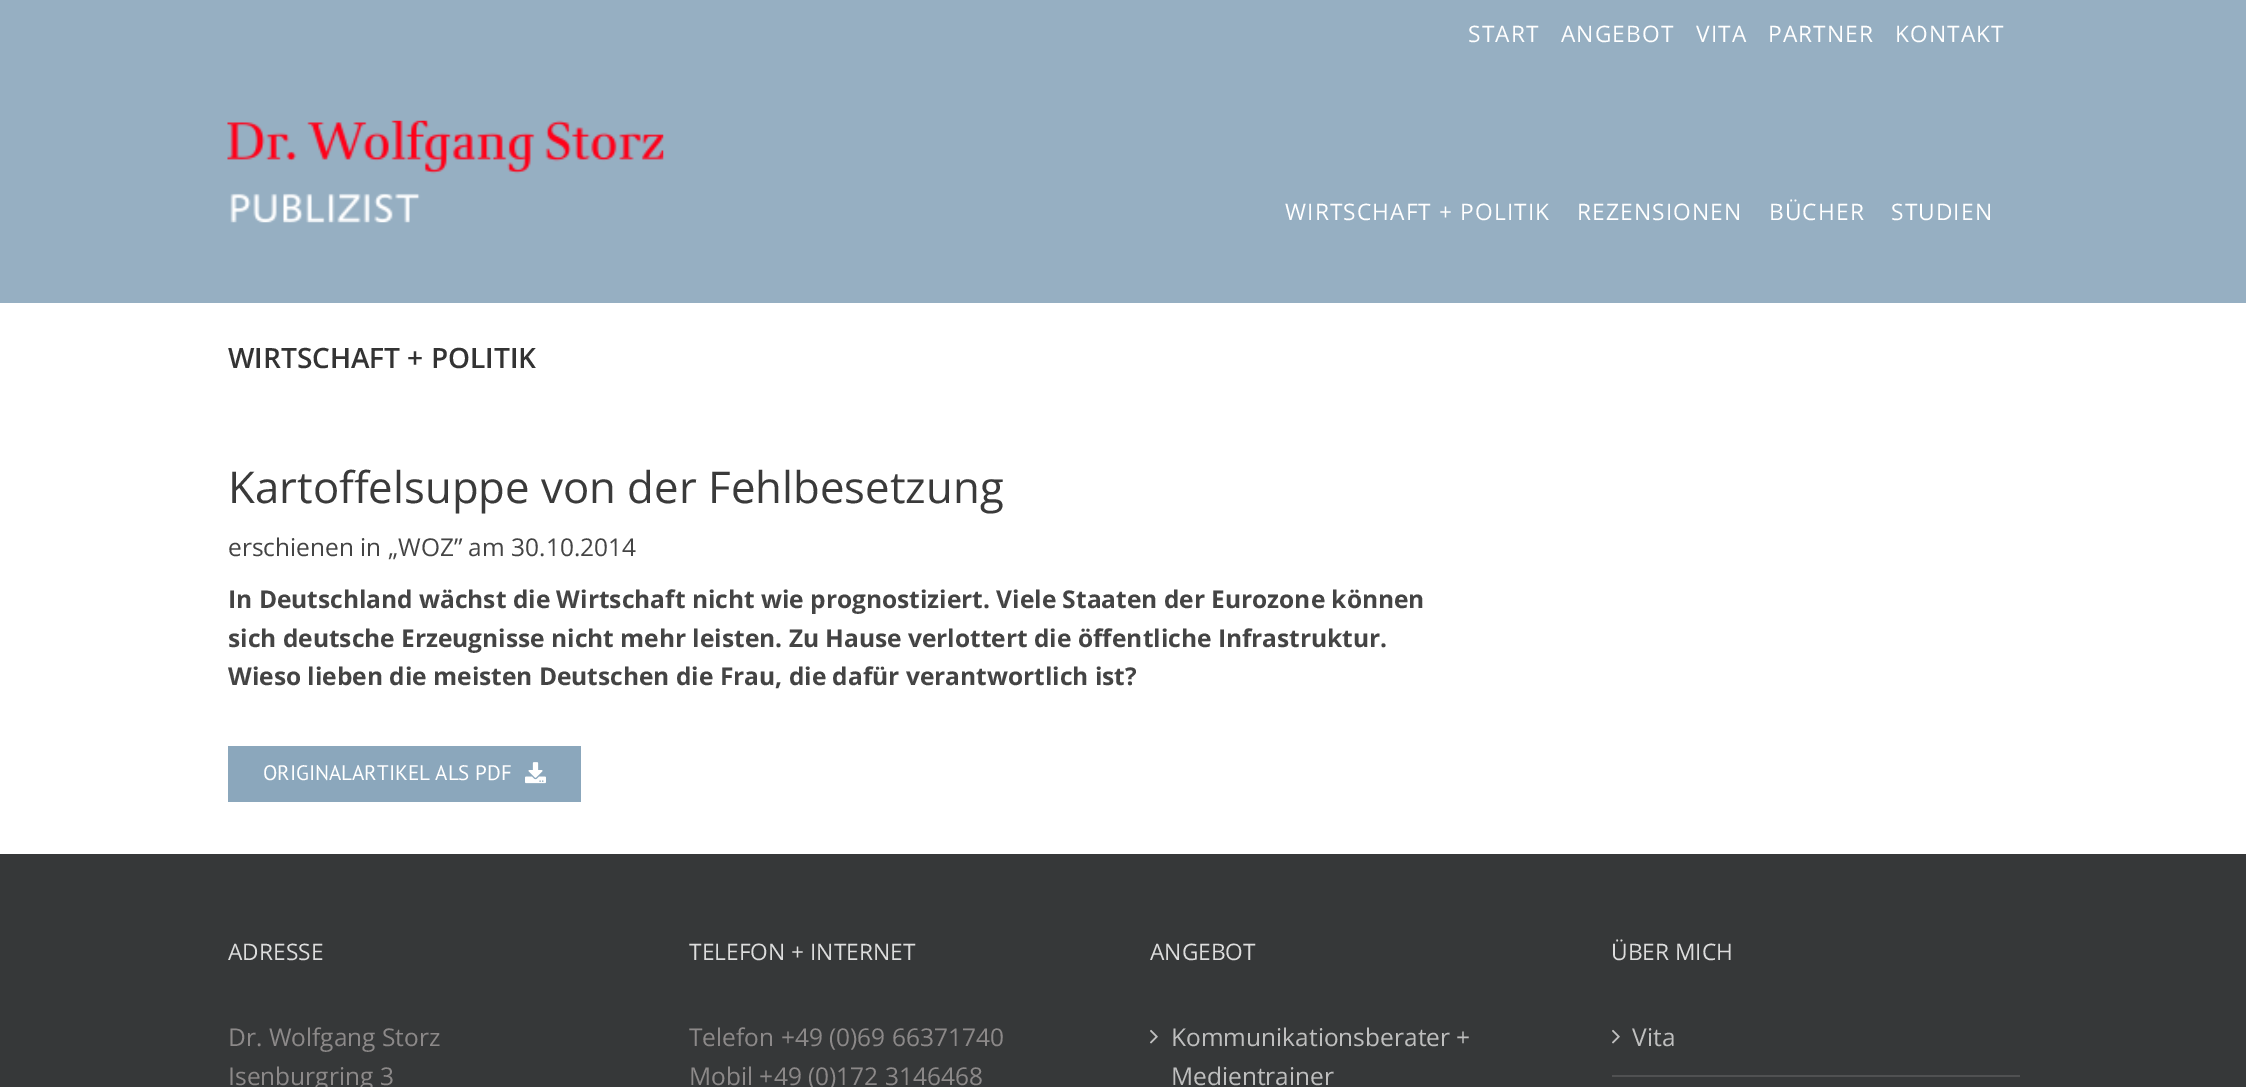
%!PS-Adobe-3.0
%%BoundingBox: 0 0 2246 1087
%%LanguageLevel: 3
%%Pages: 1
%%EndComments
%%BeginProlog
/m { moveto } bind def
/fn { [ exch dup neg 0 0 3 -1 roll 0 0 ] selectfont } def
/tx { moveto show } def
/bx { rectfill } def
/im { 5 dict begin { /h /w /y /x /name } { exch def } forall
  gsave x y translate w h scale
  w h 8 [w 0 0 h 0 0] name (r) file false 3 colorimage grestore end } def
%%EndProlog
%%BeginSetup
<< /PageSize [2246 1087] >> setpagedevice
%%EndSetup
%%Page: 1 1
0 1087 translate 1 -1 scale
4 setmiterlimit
1 setgray
0 0 2246 1087 bx
0.588 0.686 0.761 setrgbcolor
0 0 2246 303 bx
/OpenSans-Regular 22.75 fn
1 setgray
1468 42 m 1.1 0 (START) ashow
1561 42 m 1.1 0 (ANGEBOT) ashow
1696 42 m 1.1 0 (VITA) ashow
1768 42 m 1.1 0 (PARTNER) ashow
1895 42 m 1.1 0 (KONTAKT) ashow
(image0.raw) 227 120 437 103 im
1285 220 m 1.1 0 (WIRTSCHAFT + POLITIK) ashow
1577 220 m 1.1 0 (REZENSIONEN) ashow
1769 220 m 1.1 0 (BÜCHER) ashow
1891 220 m 1.1 0 (STUDIEN) ashow
/OpenSans-SemiBold 28 fn
0.2 setgray
(WIRTSCHAFT + POLITIK) 228 368 tx
/OpenSans-Regular 43.75 fn
0.227 setgray
(Kartoffelsuppe von der Fehlbesetzung) 228 503 tx
/OpenSans-Regular 24.5 fn
0.267 setgray
(erschienen in „WOZ” am 30.10.2014) 228 556 tx
/OpenSans-Bold 24.5 fn
(In Deutschland wächst die Wirtschaft nicht wie prognostiziert. Viele Staaten der Eurozone können) 228 608 tx
(sich deutsche Erzeugnisse nicht mehr leisten. Zu Hause verlottert die öffentliche Infrastruktur.) 228 647 tx
(Wieso lieben die meisten Deutschen die Frau, die dafür verantwortlich ist?) 228 685 tx
0.545 0.655 0.737 setrgbcolor
228 746 353 56 bx
/PTSans-Regular 21 fn
1 setgray
(ORIGINALARTIKEL ALS PDF) 263 780 tx
(image1.raw) 525 762 21 22 im
0.212 0.22 0.224 setrgbcolor
0 854 2246 233 bx
/OpenSans-Regular 22.75 fn
0.867 setgray
(ADRESSE) 228 960 tx
/OpenSans-Regular 24.5 fn
0.549 0.537 0.537 setrgbcolor
(Dr. Wolfgang Storz) 228 1046 tx
(Isenburgring 3) 228 1085 tx
/OpenSans-Regular 22.75 fn
0.867 setgray
(TELEFON + INTERNET) 689 960 tx
/OpenSans-Regular 24.5 fn
0.549 0.537 0.537 setrgbcolor
(Telefon +49 \(0\)69 66371740) 689 1046 tx
(Mobil +49 \(0\)172 3146468) 689 1085 tx
/OpenSans-Regular 22.75 fn
0.867 setgray
(ANGEBOT) 1150 960 tx
(image2.raw) 1150 1029 8 15 im
/OpenSans-Regular 24.5 fn
0.749 setgray
(Kommunikationsberater +) 1171 1046 tx
(Medientrainer) 1171 1085 tx
/OpenSans-Regular 22.75 fn
0.867 setgray
(ÜBER MICH) 1611 960 tx
0.314 0.318 0.322 setrgbcolor
1612 1075 408 2 bx
(image2.raw) 1612 1029 8 15 im
/OpenSans-Regular 24.5 fn
0.749 setgray
(Vita) 1632 1046 tx
showpage
%%EOF
